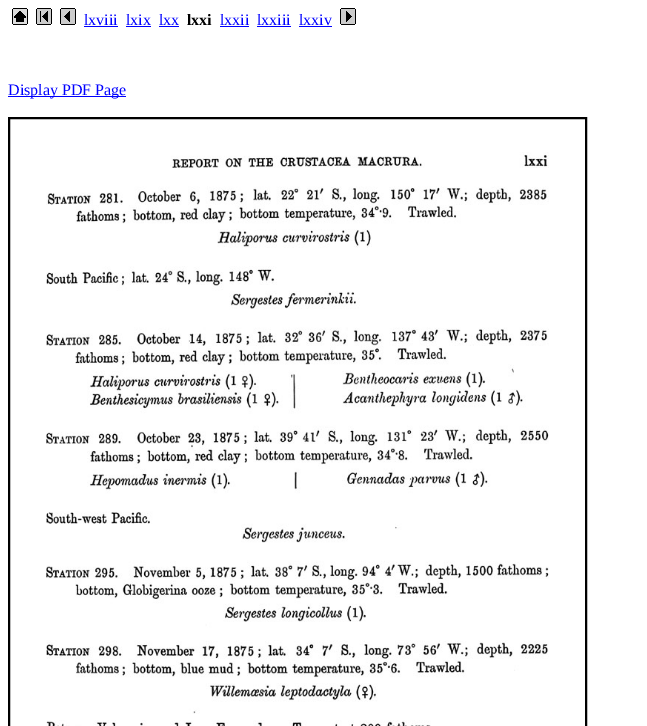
%!PS-Adobe-3.0
%%BoundingBox: 0 0 647 726
%%LanguageLevel: 3
%%Pages: 1
%%EndComments
%%BeginProlog
/w { setlinewidth } bind def
/fn { [ exch dup neg 0 0 3 -1 roll 0 0 ] selectfont } def
/tx { moveto show } def
/bx { rectfill } def
/im { 5 dict begin { /h /w /y /x /name } { exch def } forall
  gsave x y translate w h scale
  w h 8 [w 0 0 h 0 0] name (r) file false 3 colorimage grestore end } def
%%EndProlog
%%BeginSetup
<< /PageSize [647 726] >> setpagedevice
%%EndSetup
%%Page: 1 1
0 726 translate 1 -1 scale
4 setmiterlimit
1 setgray
0 0 647 726 bx
(image0.raw) 12 8 16 17 im
(image1.raw) 36 8 16 17 im
(image2.raw) 60 8 16 17 im
/LiberationSerif-Regular 16 fn
0 0 1 setrgbcolor
(lxviii) 84 25 tx
84 26 34 1 bx
(lxix) 126 25 tx
126 26 25 1 bx
(lxx) 159 25 tx
159 26 20 1 bx
/LiberationSerif-Bold 16 fn
0 setgray
(lxxi) 187 25 tx
/LiberationSerif-Regular 16 fn
0 0 1 setrgbcolor
(lxxii) 220 25 tx
220 26 29 1 bx
(lxxiii) 257 25 tx
257 26 34 1 bx
(lxxiv) 299 25 tx
299 26 33 1 bx
(image3.raw) 340 8 16 17 im
8 96 118 1 bx
(Display PDF Page) 8 95 tx
0 setgray
2 w
9 118 577 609 rectstroke
(image4.raw) 46 152 503 574 im
showpage
%%EOF
